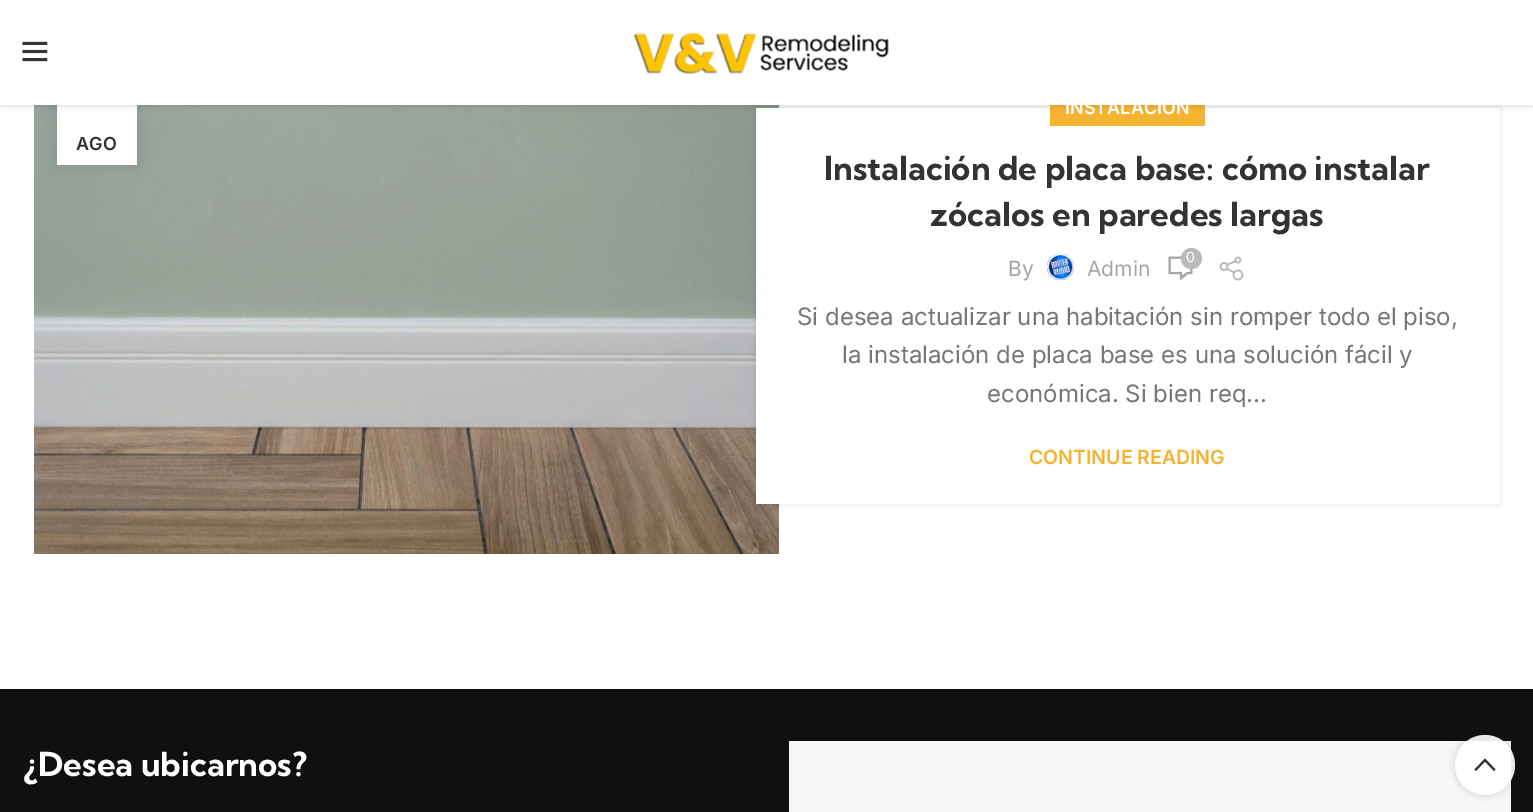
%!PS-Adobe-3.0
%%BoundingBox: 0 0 1533 812
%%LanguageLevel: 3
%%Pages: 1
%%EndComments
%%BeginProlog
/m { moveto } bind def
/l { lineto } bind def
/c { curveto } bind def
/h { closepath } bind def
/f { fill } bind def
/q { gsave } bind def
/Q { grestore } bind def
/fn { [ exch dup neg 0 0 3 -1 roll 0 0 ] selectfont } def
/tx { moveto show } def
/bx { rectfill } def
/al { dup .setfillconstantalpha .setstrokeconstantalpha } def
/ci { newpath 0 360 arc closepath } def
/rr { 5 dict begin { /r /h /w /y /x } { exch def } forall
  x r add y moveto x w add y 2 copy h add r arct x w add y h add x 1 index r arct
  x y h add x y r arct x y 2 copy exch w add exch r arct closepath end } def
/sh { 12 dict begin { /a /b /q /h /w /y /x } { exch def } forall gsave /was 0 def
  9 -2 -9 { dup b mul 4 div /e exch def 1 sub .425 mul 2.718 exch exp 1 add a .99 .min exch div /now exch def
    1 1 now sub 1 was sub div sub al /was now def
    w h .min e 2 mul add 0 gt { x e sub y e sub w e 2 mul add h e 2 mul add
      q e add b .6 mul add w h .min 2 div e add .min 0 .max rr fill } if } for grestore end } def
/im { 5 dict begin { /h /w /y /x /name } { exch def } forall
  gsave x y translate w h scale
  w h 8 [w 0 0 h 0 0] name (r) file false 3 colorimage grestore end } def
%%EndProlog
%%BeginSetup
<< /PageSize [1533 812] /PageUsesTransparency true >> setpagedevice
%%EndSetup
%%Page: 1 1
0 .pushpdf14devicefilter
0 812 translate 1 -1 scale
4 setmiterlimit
1 setgray
0 0 1533 812 bx
(image2.raw) 34 105 745 449 im
0 setgray
57 81 80 84 0 7 0.1 sh
1 setgray
57 105 80 60 bx
0 setgray
756 108 744 396 0 3 0.12 sh
1 setgray
756 108 744 396 bx
0.961 0.702 0.196 setrgbcolor
1050 105 155 21 bx
0 setgray
0 2 1533 105 0 2 0.1 sh
1 setgray
0 0 1533 105 bx
(image0.raw) 22 41 26 21 im
(image1.raw) 633 32 256 42 im
/Inter-SemiBold 18 fn
0.2 setgray
(AGO) 76 150 tx
1 setgray
(INSTALACIÓN) 1065 114 tx
/KumbhSans-Bold 33 fn
0.2 setgray
(Instalación de placa base: cómo instalar) 824 180 tx
(zócalos en paredes largas) 930 226 tx
(image3.raw) 1168 256 25 25 im
0.733 setgray
1191.5 258.5 10.5 ci f
/Inter-Regular 14 fn
1 setgray
(0) 1186 262 tx
/Inter-Regular 21 fn
0.647 setgray
(By) 1008 276 tx
(image4.raw) 1047 253 27 28 im
(Admin) 1087 276 tx
(image5.raw) 1219 256 25 25 im
/Inter-Regular 24 fn
0.467 setgray
(Si desea actualizar una habitación sin romper todo el piso,) 797 325 tx
(la instalación de placa base es una solución fácil y) 842 363 tx
(económica. Si bien req...) 987 402 tx
/Inter-SemiBold 19.5 fn
0.961 0.702 0.196 setrgbcolor
(CONTINUE READING) 1029 464 tx
0.063 setgray
0 689 1533 123 bx
/KumbhSans-Bold 33 fn
1 setgray
(¿Desea ubicarnos?) 23 776 tx
0.969 setgray
789 741 722 71 bx
q
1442 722 m 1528 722 l 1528 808 l 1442 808 l h 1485 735 m 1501.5 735 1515 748.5 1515 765 c 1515 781.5 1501.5 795 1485 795 c 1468.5 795 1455 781.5 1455 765 c 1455 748.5 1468.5 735 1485 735 c h eoclip newpath
0 setgray
1455 735 60 60 30 4 0.17 sh
Q
0.9 al
1 setgray
1485 765 30 ci f
1 al
0.2 setgray
1485 758.5 m 1495.5 769.5 l 1494 771 l 1485 761.5 l 1476 771 l 1474.5 769.5 l h f
.poppdf14devicefilter showpage
%%EOF
